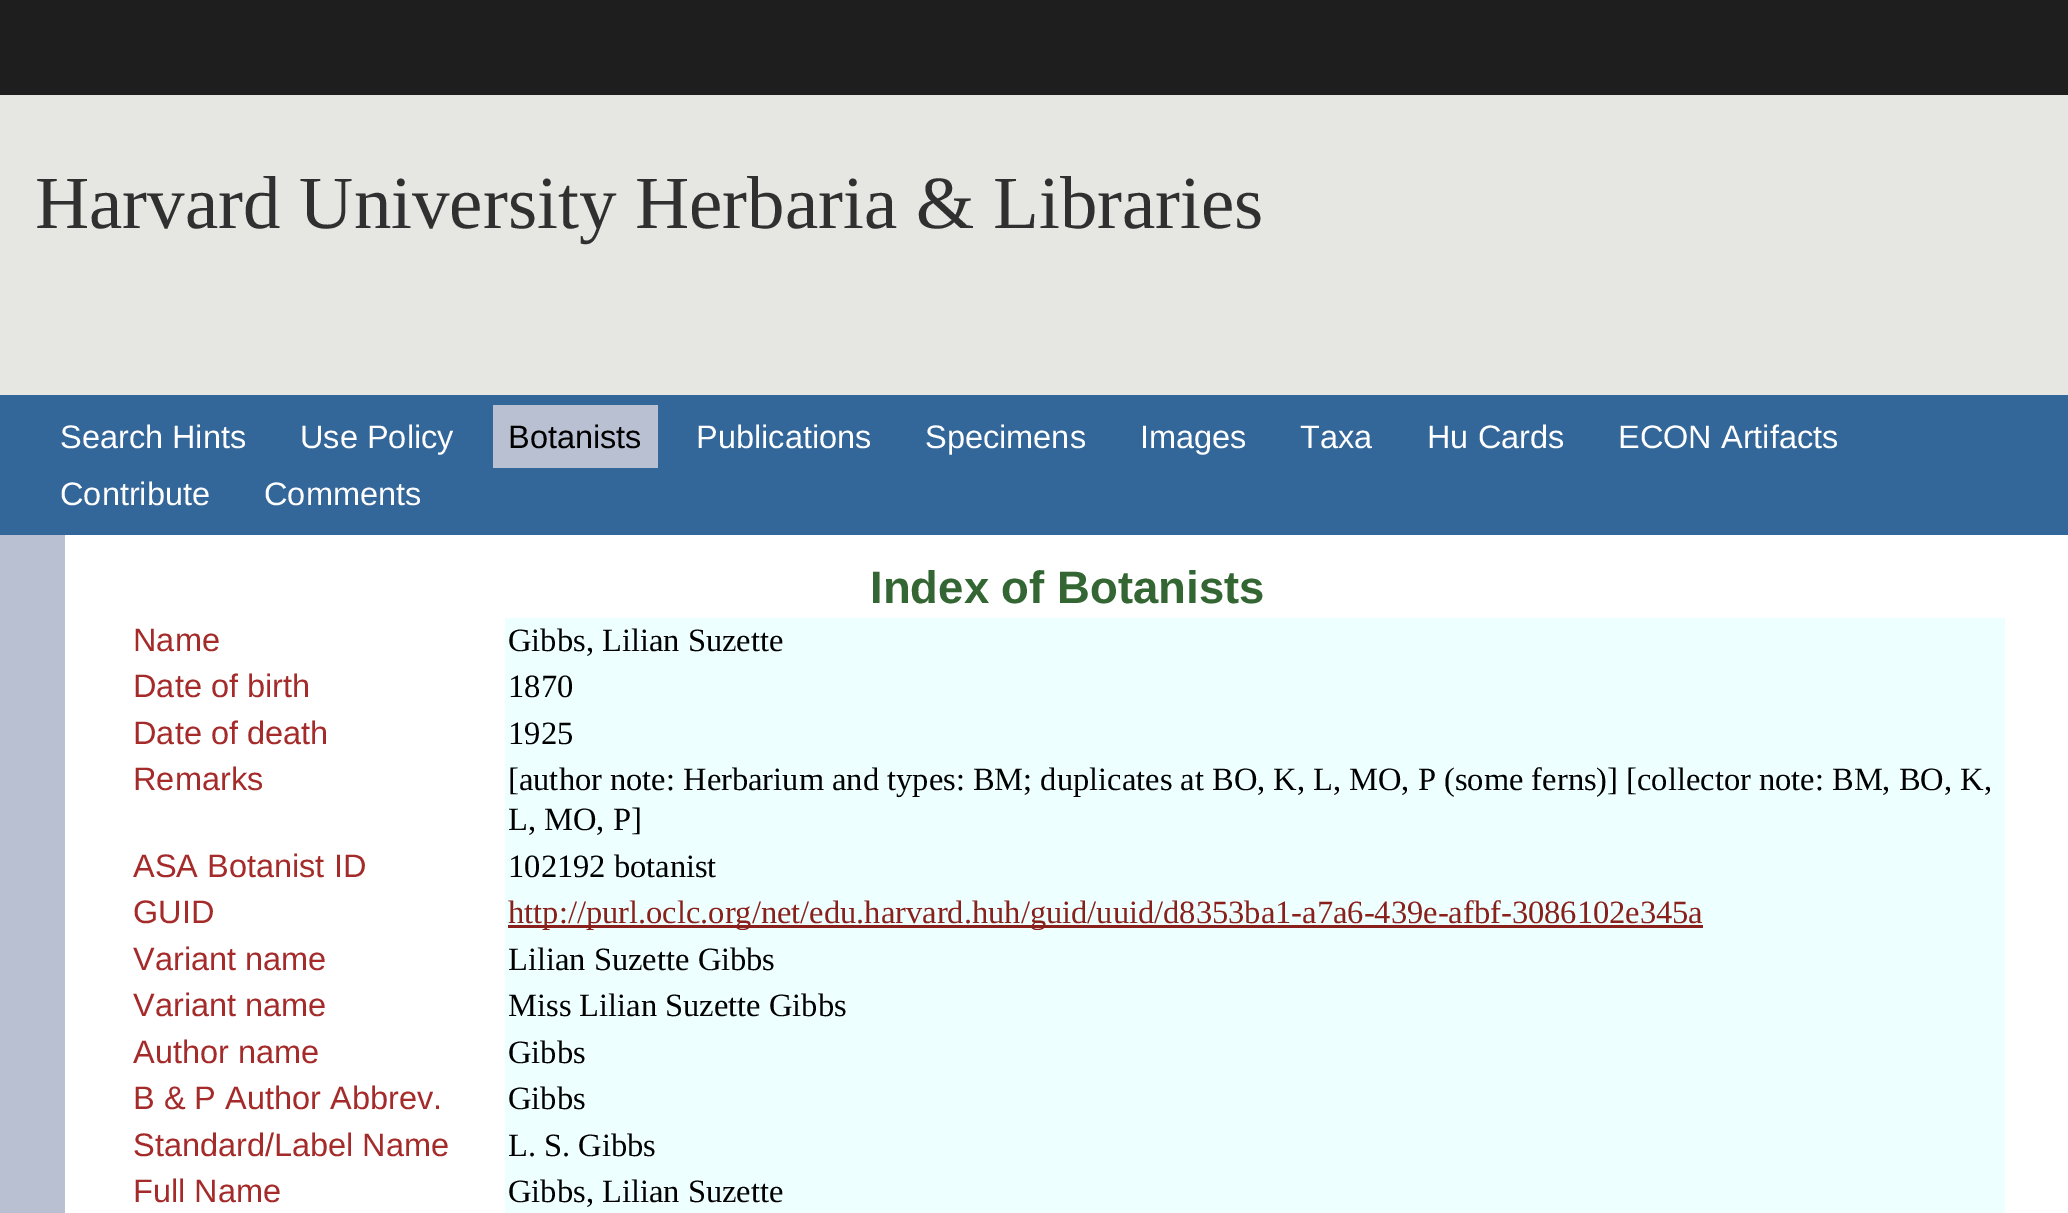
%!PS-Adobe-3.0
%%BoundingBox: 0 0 2068 1213
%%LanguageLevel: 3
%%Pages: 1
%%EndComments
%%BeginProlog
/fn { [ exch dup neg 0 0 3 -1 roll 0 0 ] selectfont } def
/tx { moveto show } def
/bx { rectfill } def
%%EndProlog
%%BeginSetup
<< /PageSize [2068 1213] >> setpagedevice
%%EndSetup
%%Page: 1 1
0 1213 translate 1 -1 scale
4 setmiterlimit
0.118 setgray
0 0 2068 1213 bx
0.902 0.902 0.89 setrgbcolor
0 95 2068 300 bx
/LiberationSerif-Regular 75 fn
0.188 setgray
(Harvard University Herbaria & Libraries) 35 228 tx
0.2 0.4 0.6 setrgbcolor
0 395 2068 140 bx
/LiberationSans-Regular 32.5 fn
1 setgray
(Search Hints) 60 448 tx
(Use Policy) 300 448 tx
0.722 0.753 0.824 setrgbcolor
493 405 165 63 bx
0 setgray
(Botanists) 508 448 tx
1 setgray
(Publications) 696 448 tx
(Specimens) 925 448 tx
(Images) 1140 448 tx
(Taxa) 1300 448 tx
(Hu Cards) 1427 448 tx
(ECON Artifacts) 1618 448 tx
(Contribute) 60 505 tx
(Comments) 264 505 tx
0.722 0.753 0.824 setrgbcolor
0 535 65 678 bx
1 setgray
65 535 2003 678 bx
/LiberationSans-Bold 45.5 fn
0.2 0.4 0.2 setrgbcolor
(Index of Botanists) 870 603 tx
/LiberationSans-Regular 32.5 fn
0.647 0.165 0.165 setrgbcolor
(Name) 133 651 tx
0.933 1 1 setrgbcolor
505 618 1500 595 bx
/LiberationSerif-Regular 32.5 fn
0 setgray
(Gibbs, Lilian Suzette) 508 651 tx
/LiberationSans-Regular 32.5 fn
0.647 0.165 0.165 setrgbcolor
(Date of birth) 133 697 tx
/LiberationSerif-Regular 32.5 fn
0 setgray
(1870) 508 697 tx
/LiberationSans-Regular 32.5 fn
0.647 0.165 0.165 setrgbcolor
(Date of death) 133 744 tx
/LiberationSerif-Regular 32.5 fn
0 setgray
(1925) 508 744 tx
/LiberationSans-Regular 32.5 fn
0.647 0.165 0.165 setrgbcolor
(Remarks) 133 790 tx
/LiberationSerif-Regular 32.5 fn
0 setgray
([author note: Herbarium and types: BM; duplicates at BO, K, L, MO, P \(some ferns\)] [collector note: BM, BO, K,) 508 790 tx
(L, MO, P]) 508 830 tx
/LiberationSans-Regular 32.5 fn
0.647 0.165 0.165 setrgbcolor
(ASA Botanist ID) 133 877 tx
/LiberationSerif-Regular 32.5 fn
0 setgray
(102192 botanist) 508 877 tx
/LiberationSans-Regular 32.5 fn
0.647 0.165 0.165 setrgbcolor
(GUID) 133 923 tx
0.537 0.125 0.106 setrgbcolor
508 925 1195 3 bx
/LiberationSerif-Regular 32.5 fn
(http://purl.oclc.org/net/edu.harvard.huh/guid/uuid/d8353ba1-a7a6-439e-afbf-3086102e345a) 508 923 tx
/LiberationSans-Regular 32.5 fn
0.647 0.165 0.165 setrgbcolor
(Variant name) 133 970 tx
/LiberationSerif-Regular 32.5 fn
0 setgray
(Lilian Suzette Gibbs) 508 970 tx
/LiberationSans-Regular 32.5 fn
0.647 0.165 0.165 setrgbcolor
(Variant name) 133 1016 tx
/LiberationSerif-Regular 32.5 fn
0 setgray
(Miss Lilian Suzette Gibbs) 508 1016 tx
/LiberationSans-Regular 32.5 fn
0.647 0.165 0.165 setrgbcolor
(Author name) 133 1063 tx
/LiberationSerif-Regular 32.5 fn
0 setgray
(Gibbs) 508 1063 tx
/LiberationSans-Regular 32.5 fn
0.647 0.165 0.165 setrgbcolor
(B & P Author Abbrev.) 133 1109 tx
/LiberationSerif-Regular 32.5 fn
0 setgray
(Gibbs) 508 1109 tx
/LiberationSans-Regular 32.5 fn
0.647 0.165 0.165 setrgbcolor
(Standard/Label Name) 133 1156 tx
/LiberationSerif-Regular 32.5 fn
0 setgray
(L. S. Gibbs) 508 1156 tx
/LiberationSans-Regular 32.5 fn
0.647 0.165 0.165 setrgbcolor
(Full Name) 133 1202 tx
/LiberationSerif-Regular 32.5 fn
0 setgray
(Gibbs, Lilian Suzette) 508 1202 tx
showpage
%%EOF
